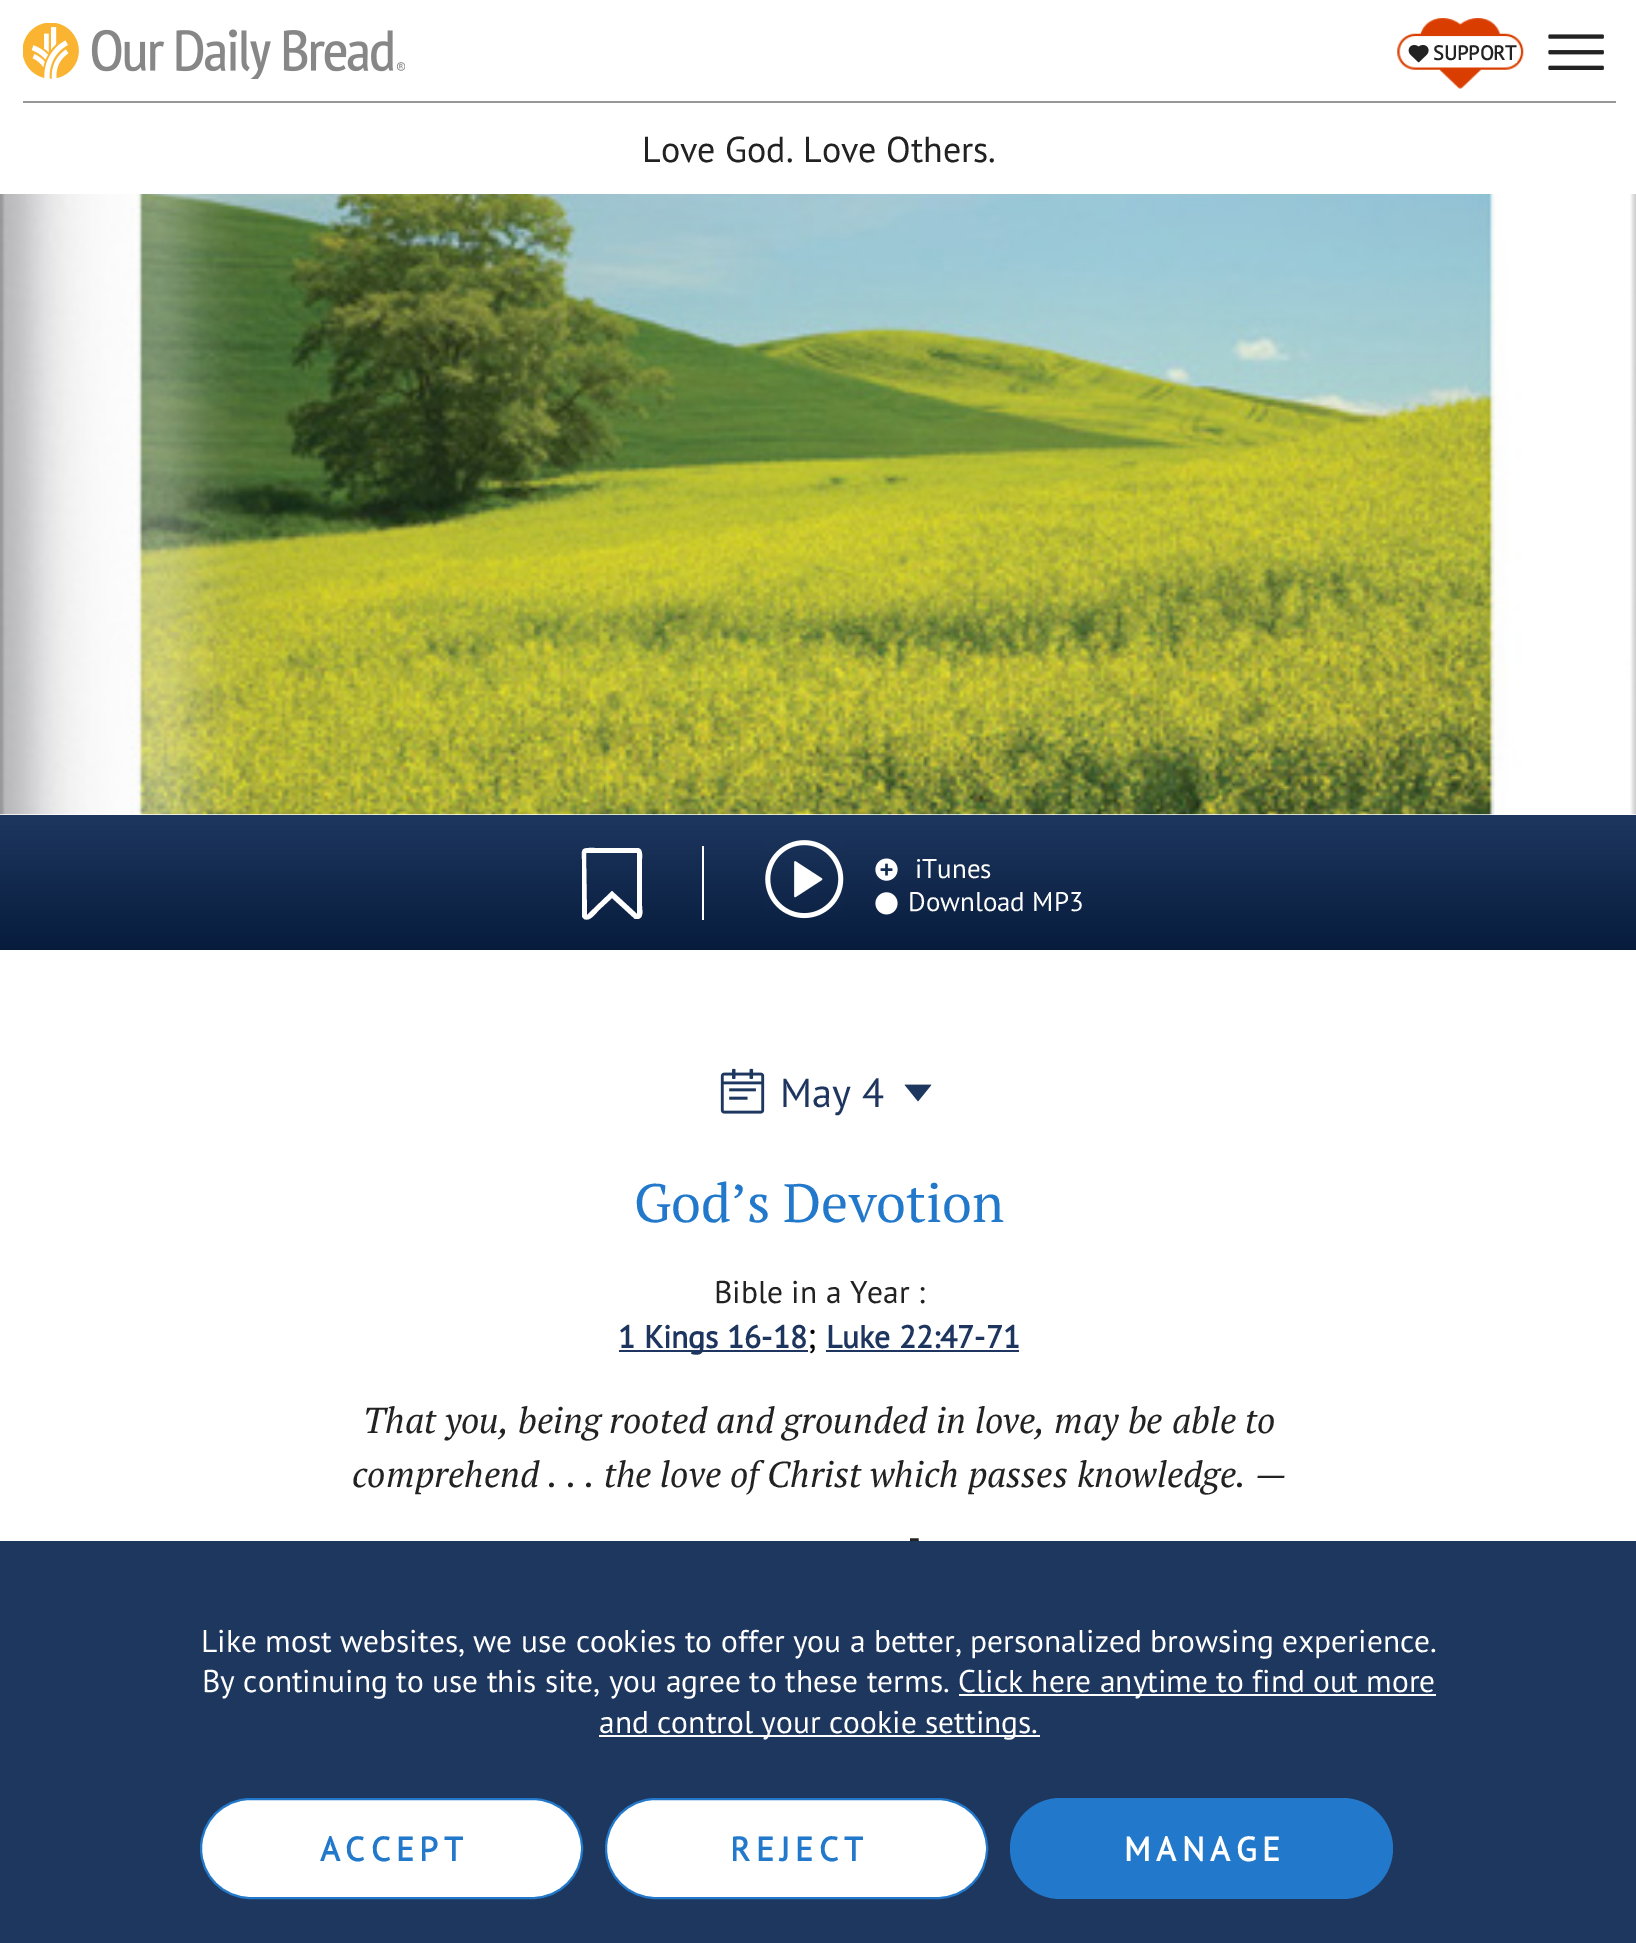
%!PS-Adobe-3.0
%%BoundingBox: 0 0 1636 1943
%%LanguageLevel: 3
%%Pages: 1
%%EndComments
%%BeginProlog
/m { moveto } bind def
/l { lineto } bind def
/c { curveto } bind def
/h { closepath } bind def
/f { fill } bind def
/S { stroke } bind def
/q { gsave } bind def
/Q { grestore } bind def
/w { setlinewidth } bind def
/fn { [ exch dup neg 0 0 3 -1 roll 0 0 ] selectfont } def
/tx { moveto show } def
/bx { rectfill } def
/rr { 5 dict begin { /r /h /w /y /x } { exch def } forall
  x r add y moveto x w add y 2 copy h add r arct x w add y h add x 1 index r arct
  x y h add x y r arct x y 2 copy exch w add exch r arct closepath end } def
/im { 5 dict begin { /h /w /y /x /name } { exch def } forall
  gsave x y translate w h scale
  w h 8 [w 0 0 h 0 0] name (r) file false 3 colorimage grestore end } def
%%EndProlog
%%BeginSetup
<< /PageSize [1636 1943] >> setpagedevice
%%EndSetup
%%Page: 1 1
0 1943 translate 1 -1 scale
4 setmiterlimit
1 setgray
0 0 1636 1943 bx
(image0.raw) 23 23 382 56 im
(image1.raw) 1397 18 127 71 im
1404 60 113 3 bx
(image2.raw) 1408 45 21 18 im
/PTSans-Bold 20.25 fn
0.133 setgray
(SUPPORT) 1433 60 tx
(image3.raw) 1548 34 56 36 im
0.592 setgray
23 101 1593 2 bx
/PTSans-Regular 36 fn
0.133 setgray
(Love God. Love Others.) 642 162 tx
(image4.raw) 0 194 1636 621 im
q 0 815 m 1636 815 l 1636 950 l 0 950 l h clip newpath
<< /ShadingType 2 /ColorSpace /DeviceRGB /Coords [819 814 819 950] /Extend [true true] /Function << /FunctionType 2 /Domain [0 1] /C0 [0.118 0.216 0.373] /C1 [0.027 0.11 0.239] /N 1 >> >> shfill Q
1 setgray
642 894 m 642 859 l 642 855 643 848 637 848 c 595 848 l 583 848 581 847 582 859 c 582 915 l 582 917 583 918 584 919 c 590 922 596 913 599 910 c 612 898 l 635 919 l 638 919 l 644 918 642 910 642 906 c h 637 914 m 612 891 l 587 915 l 586 853 l 637 853 l h f
702 846 2 74 bx
(image5.raw) 765 840 79 79 im
(image6.raw) 875 858 23 23 im
/PTSans-Regular 27 fn
(iTunes) 915 878 tx
(image7.raw) 875 892 23 23 im
(Download MP3) 908 911 tx
(image8.raw) 720 1068 45 46 im
/PTSans-Regular 40.5 fn
0.118 0.212 0.373 setrgbcolor
(May 4) 780 1107 tx
(image9.raw) 904 1084 28 18 im
/PTSerif-Regular 54 fn
0.133 0.475 0.796 setrgbcolor
(God’s Devotion) 634 1222 tx
/PTSans-Regular 31.5 fn
0.133 setgray
(Bible in a Year :) 714 1303 tx
0.118 0.212 0.373 setrgbcolor
619 1350 189 2 bx
/PTSans-Bold 31.5 fn
(1 Kings 16-18) 618 1348 tx
/PTSans-Regular 36 fn
0 setgray
(;) 807 1348 tx
/PTSans-Bold 31.5 fn
0.118 0.212 0.373 setrgbcolor
(Luke 22:47-71) 826 1348 tx
826 1350 193 2 bx
/PTSerif-Italic 36 fn
0.133 setgray
(That you, being rooted and grounded in love, may be able to) 363 1433 tx
(comprehend . . . the love of Christ which passes knowledge. —) 352 1487 tx
/PTSans-Regular 36 fn
(-) 908 1550 tx
0.118 0.216 0.373 setrgbcolor
0 1541 1636 402 bx
/PTSans-Regular 31.5 fn
1 setgray
(Like most websites, we use cookies to offer you a better, personalized browsing experience.) 201 1652 tx
(By continuing to use this site, you agree to these terms.) 202 1692 tx
959 1694 477 2 bx
(Click here anytime to find out more) 958 1692 tx
599 1735 441 2 bx
(and control your cookie settings.) 599 1733 tx
201 1799 381 99 49.5 rr q f Q
0.133 0.475 0.796 setrgbcolor
2 w
S
/PTSans-Bold 33.75 fn
320 1861 m 5.75 0 (ACCEPT) ashow
1 setgray
606 1799 381 99 49.5 rr q f Q
0.133 0.475 0.796 setrgbcolor
S
730 1861 m 5.75 0 (REJECT) ashow
1010 1798 383 101 50.5 rr f
1 setgray
1124 1861 m 5.75 0 (MANAGE) ashow
showpage
%%EOF
